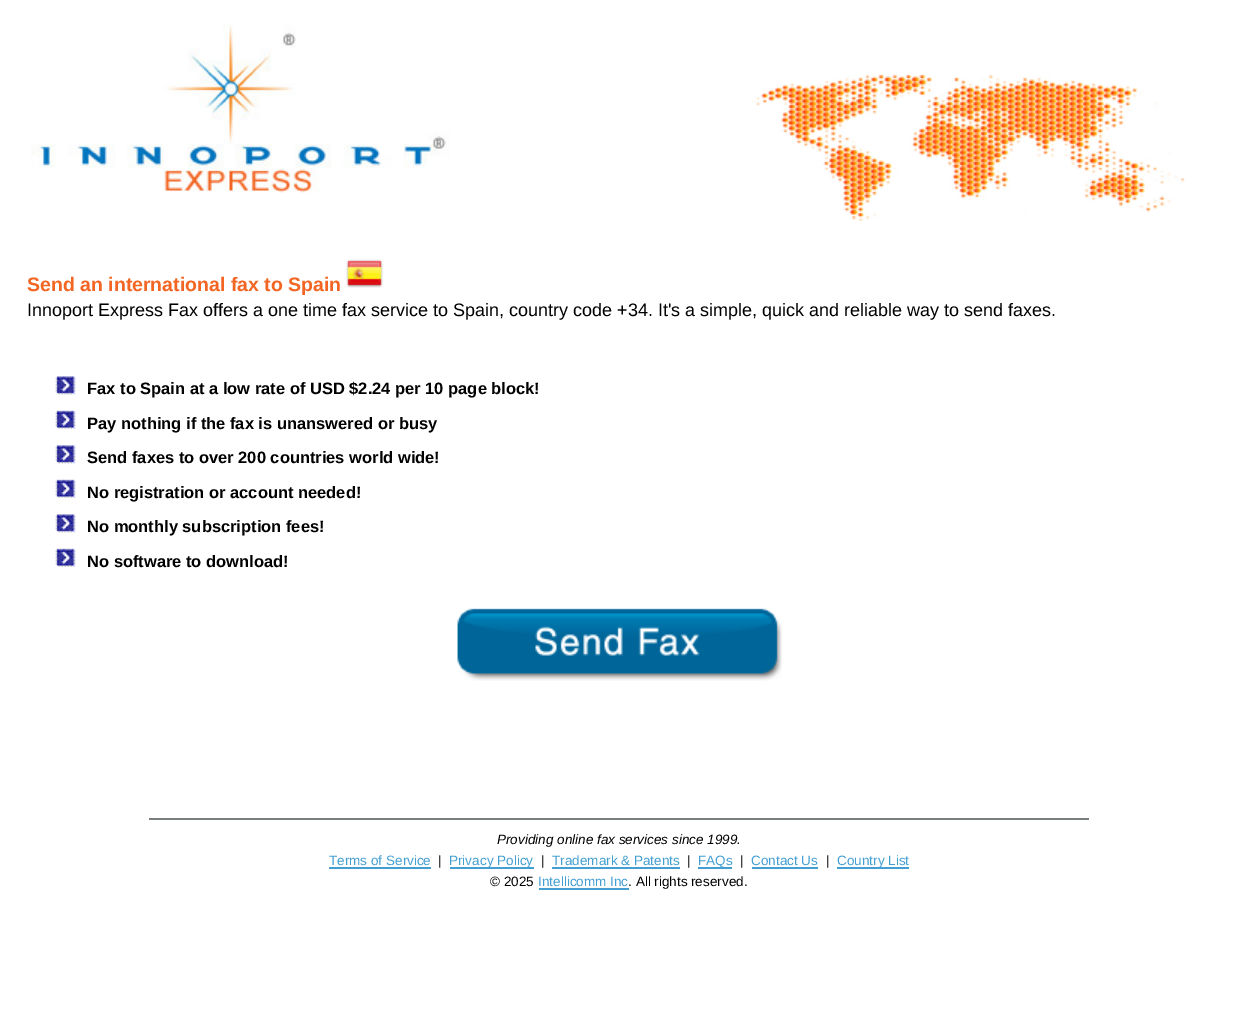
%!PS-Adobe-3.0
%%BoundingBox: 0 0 1237 1034
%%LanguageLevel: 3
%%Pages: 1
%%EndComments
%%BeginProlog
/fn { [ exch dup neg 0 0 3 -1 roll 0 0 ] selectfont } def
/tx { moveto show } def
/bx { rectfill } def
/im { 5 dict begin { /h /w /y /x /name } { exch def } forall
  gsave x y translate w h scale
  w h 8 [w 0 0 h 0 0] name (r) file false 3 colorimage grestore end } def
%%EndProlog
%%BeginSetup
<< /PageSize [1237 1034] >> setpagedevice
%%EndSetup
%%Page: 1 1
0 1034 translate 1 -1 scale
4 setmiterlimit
1 setgray
0 0 1237 1034 bx
(image0.raw) 31 24 419 169 im
(image1.raw) 751 74 434 147 im
/LiberationSans-Bold 19.5 fn
0.949 0.396 0.133 setrgbcolor
(Send an international fax to Spain) 27 291 tx
(image2.raw) 346 259 37 29 im
/LiberationSans-Regular 18 fn
0 setgray
(Innoport Express Fax offers a one time fax service to Spain, country code +34. It's a simple, quick and reliable way to send faxes.) 27 316 tx
(image3.raw) 55 376 21 19 im
/LiberationSans-Bold 16.5 fn
(Fax to Spain at a low rate of USD $2.24 per 10 page block!) 87 394 tx
(image4.raw) 55 410 21 19 im
(Pay nothing if the fax is unanswered or busy) 87 429 tx
(image3.raw) 55 445 21 19 im
(Send faxes to over 200 countries world wide!) 87 463 tx
(image4.raw) 55 479 21 19 im
(No registration or account needed!) 87 498 tx
(image3.raw) 55 514 21 19 im
(No monthly subscription fees!) 87 532 tx
(image4.raw) 55 548 21 19 im
(No software to download!) 87 567 tx
(image5.raw) 457 608 325 73 im
0.475 0.502 0.49 setrgbcolor
149 818 940 2 bx
/LiberationSans-Italic 13.5 fn
0 setgray
(Providing online fax services since 1999.) 497 844 tx
/LiberationSans-Regular 13.5 fn
0.263 0.624 0.824 setrgbcolor
(Terms of Service) 329 865 tx
329 867 102 2 bx
0 setgray
(|) 438 865 tx
0.263 0.624 0.824 setrgbcolor
450 867 84 2 bx
(Privacy Policy) 449 865 tx
0 setgray
(|) 541 865 tx
0.263 0.624 0.824 setrgbcolor
(Trademark & Patents) 552 865 tx
552 867 128 2 bx
0 setgray
(|) 687 865 tx
0.263 0.624 0.824 setrgbcolor
698 867 34 2 bx
(FAQs) 698 865 tx
0 setgray
(|) 740 865 tx
0.263 0.624 0.824 setrgbcolor
(Contact Us) 751 865 tx
752 867 66 2 bx
0 setgray
(|) 826 865 tx
0.263 0.624 0.824 setrgbcolor
837 867 72 2 bx
(Country List) 837 865 tx
0 setgray
(© 2025) 490 886 tx
0.263 0.624 0.824 setrgbcolor
(Intellicomm Inc) 538 886 tx
539 888 90 2 bx
0 setgray
(. All rights reserved.) 628 886 tx
showpage
%%EOF
